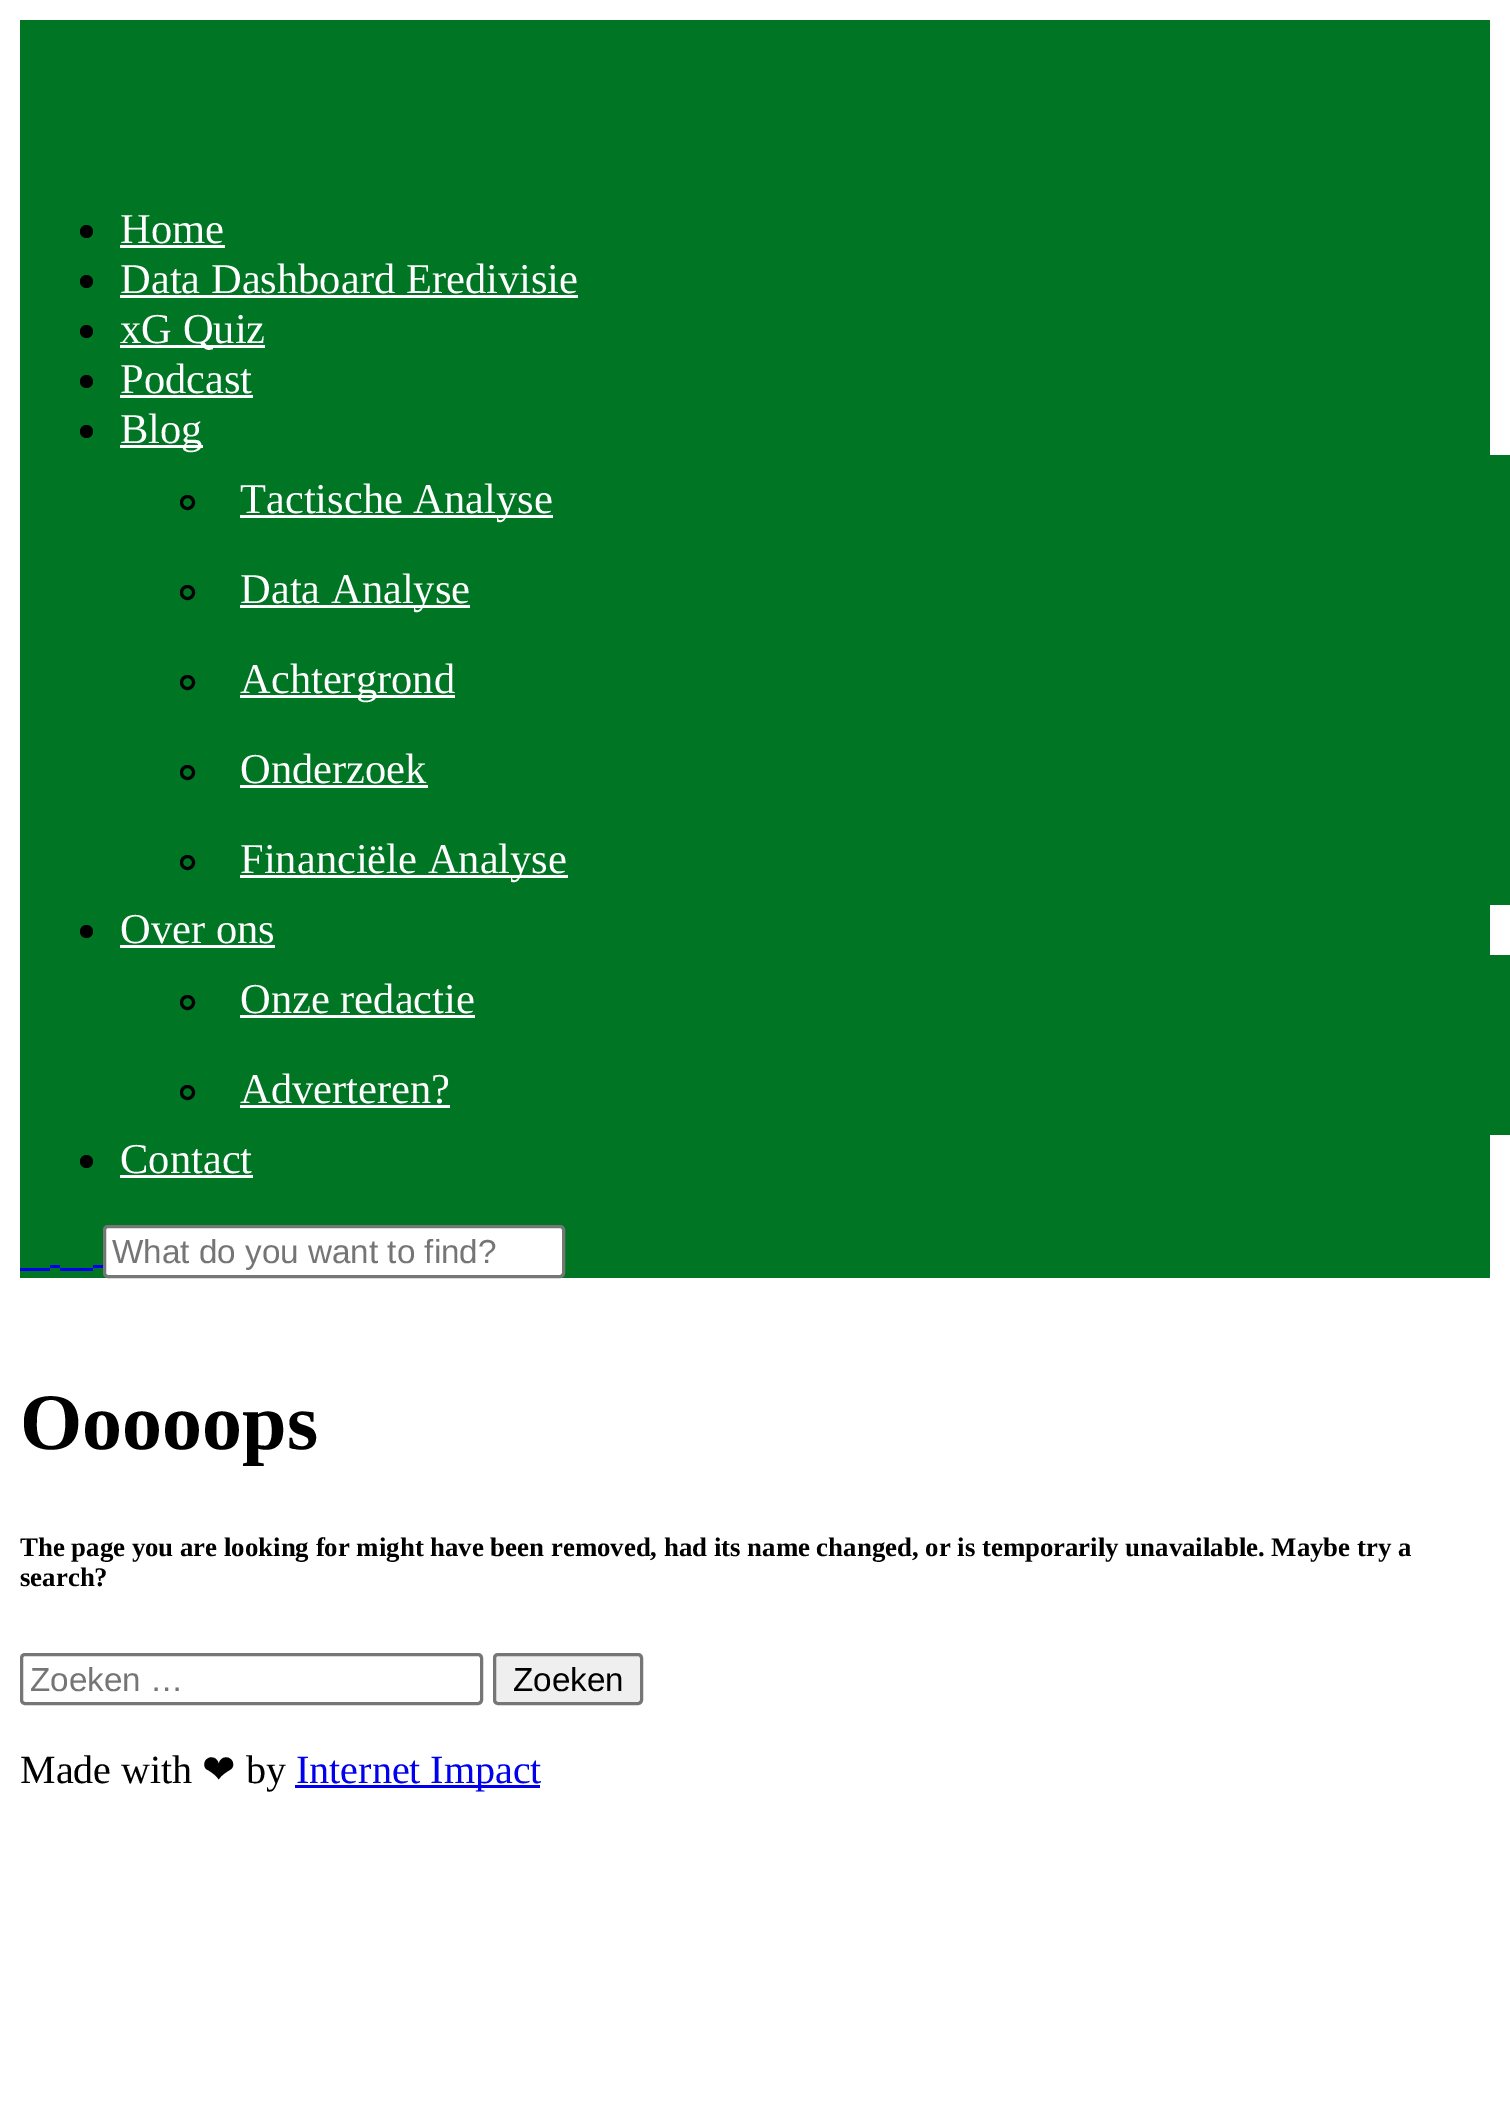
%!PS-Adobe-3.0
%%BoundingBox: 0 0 1510 2125
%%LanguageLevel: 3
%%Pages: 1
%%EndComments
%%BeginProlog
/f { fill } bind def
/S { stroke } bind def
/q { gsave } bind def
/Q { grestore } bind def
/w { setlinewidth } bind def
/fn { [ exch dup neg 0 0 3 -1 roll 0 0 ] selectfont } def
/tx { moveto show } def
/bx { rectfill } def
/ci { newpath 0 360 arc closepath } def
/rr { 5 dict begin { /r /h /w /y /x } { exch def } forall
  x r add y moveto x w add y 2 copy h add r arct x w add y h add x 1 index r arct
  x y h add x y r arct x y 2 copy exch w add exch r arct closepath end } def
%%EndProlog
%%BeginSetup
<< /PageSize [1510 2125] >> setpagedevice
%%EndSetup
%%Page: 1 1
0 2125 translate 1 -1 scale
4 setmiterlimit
1 setgray
0 0 1510 2125 bx
0 0.459 0.137 setrgbcolor
20 20 1470 1258 bx
0 setgray
86.5 231.5 6.5 ci f
/LiberationSerif-Regular 42.5 fn
1 setgray
(Home) 120 243 tx
120 245 105 3 bx
0 setgray
86.5 281.5 6.5 ci f
1 setgray
(Data Dashboard Eredivisie) 120 293 tx
120 295 458 3 bx
0 setgray
86.5 331.5 6.5 ci f
1 setgray
120 345 145 3 bx
(xG Quiz) 120 343 tx
0 setgray
86.5 381.5 6.5 ci f
1 setgray
(Podcast) 120 393 tx
120 395 133 3 bx
0 setgray
86.5 431.5 6.5 ci f
1 setgray
120 445 83 3 bx
(Blog) 120 443 tx
0 setgray
3 w
187.5 502.5 6 ci S
0 0.459 0.137 setrgbcolor
1490 455 20 450 bx
1 setgray
240 515 313 3 bx
(Tactische Analyse) 240 513 tx
0 setgray
187.5 592.5 6 ci S
1 setgray
240 605 230 3 bx
(Data Analyse) 240 603 tx
0 setgray
187.5 682.5 6 ci S
1 setgray
240 695 215 3 bx
(Achtergrond) 240 693 tx
0 setgray
187.5 772.5 6 ci S
1 setgray
(Onderzoek) 240 783 tx
240 785 188 3 bx
0 setgray
187.5 862.5 6 ci S
1 setgray
240 875 328 3 bx
(Financiële Analyse) 240 873 tx
0 setgray
86.5 931.5 6.5 ci f
1 setgray
(Over ons) 120 943 tx
120 945 155 3 bx
0 setgray
187.5 1002.5 6 ci S
0 0.459 0.137 setrgbcolor
1490 955 20 180 bx
1 setgray
(Onze redactie) 240 1013 tx
240 1015 235 3 bx
0 setgray
187.5 1092.5 6 ci S
1 setgray
(Adverteren?) 240 1103 tx
240 1105 210 3 bx
0 setgray
86.5 1161.5 6.5 ci f
1 setgray
(Contact) 120 1173 tx
120 1175 133 3 bx
0 0 0.933 setrgbcolor
50 1265 10 3 bx
93 1265 10 3 bx
1 setgray
104.5 1226.5 459 50 3.5 rr q f Q
0.463 setgray
S
/LiberationSans-Regular 33.25 fn
0.459 setgray
(What do you want to find?) 112 1263 tx
0 0 0.933 setrgbcolor
20 1268 30 3 bx
60 1268 33 3 bx
/LiberationSerif-Bold 80 fn
0 setgray
(Ooooops) 20 1449 tx
/LiberationSerif-Bold 26.8 fn
(The page you are looking for might have been removed, had its name changed, or is temporarily unavailable. Maybe try a) 20 1556 tx
(search?) 20 1586 tx
0.463 setgray
21.5 1654.5 460 49 3.5 rr S
/LiberationSans-Regular 33.25 fn
0.459 setgray
(Zoeken …) 30 1691 tx
0.937 setgray
494.5 1654.5 147 49 3.5 rr q f Q
0.463 setgray
S
0 setgray
(Zoeken) 513 1691 tx
/LiberationSerif-Regular 40 fn
(Made with) 20 1783 tx
/DejaVuSans-Regular 40 fn
(❤) 202 1783 tx
/LiberationSerif-Regular 40 fn
(by) 246 1783 tx
0 0 0.933 setrgbcolor
295 1785 245 3 bx
(Internet Impact) 296 1783 tx
showpage
%%EOF
